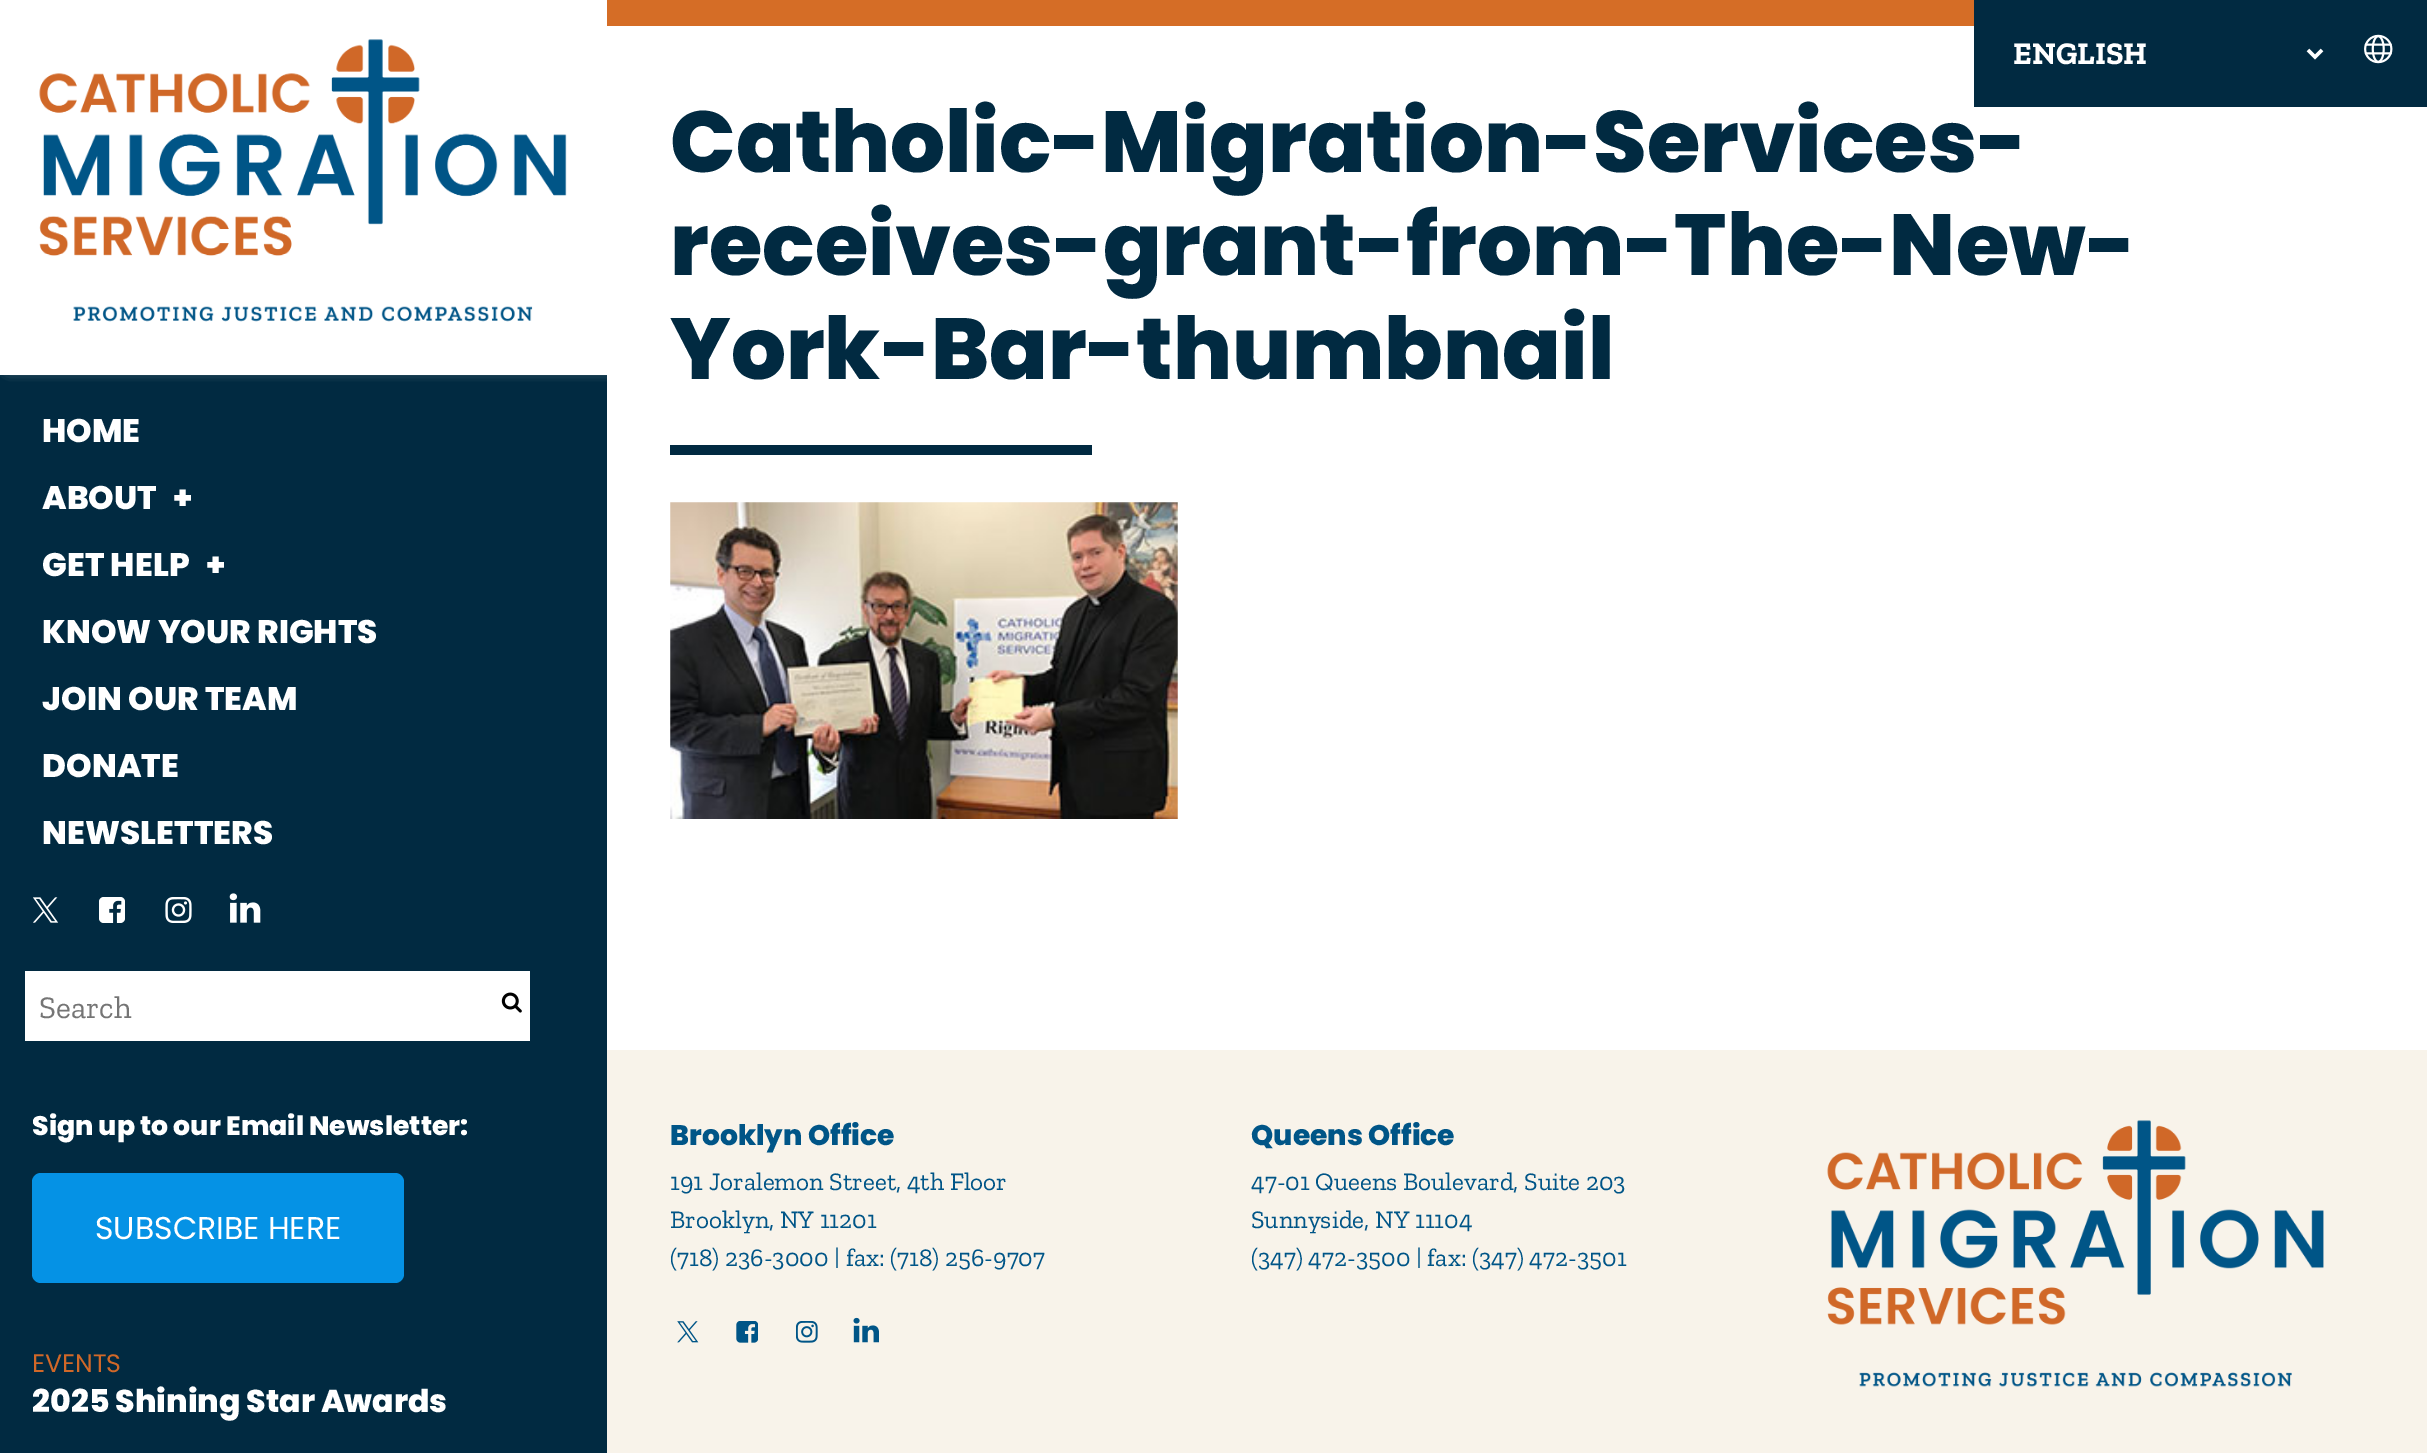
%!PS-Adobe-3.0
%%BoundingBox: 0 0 2427 1453
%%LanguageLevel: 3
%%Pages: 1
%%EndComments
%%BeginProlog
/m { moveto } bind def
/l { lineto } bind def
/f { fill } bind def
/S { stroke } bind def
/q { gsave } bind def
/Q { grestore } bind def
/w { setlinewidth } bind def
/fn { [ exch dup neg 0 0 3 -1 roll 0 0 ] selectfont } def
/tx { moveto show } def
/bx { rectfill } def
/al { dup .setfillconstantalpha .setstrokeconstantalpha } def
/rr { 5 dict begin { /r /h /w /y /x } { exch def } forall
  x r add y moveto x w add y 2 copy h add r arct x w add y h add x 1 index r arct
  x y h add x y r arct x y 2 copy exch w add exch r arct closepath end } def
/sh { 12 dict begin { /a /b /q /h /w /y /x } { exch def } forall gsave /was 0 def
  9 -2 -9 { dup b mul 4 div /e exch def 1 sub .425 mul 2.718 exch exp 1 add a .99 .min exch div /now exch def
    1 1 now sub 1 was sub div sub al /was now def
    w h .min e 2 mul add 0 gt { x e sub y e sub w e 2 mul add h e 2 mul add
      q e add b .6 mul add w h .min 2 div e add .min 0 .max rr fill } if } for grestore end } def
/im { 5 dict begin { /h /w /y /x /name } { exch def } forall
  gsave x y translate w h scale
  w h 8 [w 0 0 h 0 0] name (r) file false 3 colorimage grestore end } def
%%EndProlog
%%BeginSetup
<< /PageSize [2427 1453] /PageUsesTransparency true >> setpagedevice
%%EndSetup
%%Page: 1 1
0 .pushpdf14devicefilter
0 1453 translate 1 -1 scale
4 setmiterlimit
1 setgray
0 0 2427 1453 bx
0.004 0.165 0.255 setrgbcolor
1974 0 453 107 bx
1 setgray
3.5 w
2308 50 m 2315 57 l 2322 50 l S
/ZillaSlab-Bold 31.5 fn
(ENGLISH) 2013 64 tx
(image0.raw) 2364 34 29 30 im
0.004 0.165 0.255 setrgbcolor
0 375 607 1078 bx
q
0 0 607 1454 rectclip
0.867 setgray
9 -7 607 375 0 6 1 sh
Q
1 setgray
0 0 607 375 bx
(image1.raw) 39 39 528 283 im
/Poppins-ExtraBold 32.6 fn
(HOME) 42 442 tx
(ABOUT) 42 509 tx
(+) 173 509 tx
(GET HELP) 42 576 tx
(+) 206 576 tx
(KNOW YOUR RIGHTS) 42 643 tx
(JOIN OUR TEAM) 42 710 tx
(DONATE) 42 777 tx
(NEWSLETTERS) 42 844 tx
(image2.raw) 33 897 26 26 im
(image3.raw) 99 897 26 26 im
(image4.raw) 165 897 27 26 im
(image5.raw) 229 893 32 30 im
25 971 505 70 bx
/ZillaSlab-Regular 31.5 fn
0.459 setgray
(Search) 39 1018 tx
(image6.raw) 501 992 21 21 im
/Poppins-ExtraBold 26.75 fn
1 setgray
(Sign up to our Email Newsletter:) 32 1135 tx
0.02 0.573 0.898 setrgbcolor
32 1173 372 110 9 rr f
/Poppins-Regular 31.5 fn
1 setgray
(SUBSCRIBE HERE) 95 1239 tx
/Poppins-Regular 25.25 fn
0.82 0.408 0.157 setrgbcolor
(EVENTS) 32 1372 tx
/Poppins-ExtraBold 31.5 fn
1 setgray
(2025 Shining Star Awards) 32 1412 tx
0.835 0.427 0.149 setrgbcolor
607 0 1367 26 bx
/Poppins-ExtraBold 86.6 fn
0.004 0.165 0.255 setrgbcolor
(Catholic-Migration-Services-) 670 172 tx
(receives-grant-from-The-New-) 670 275 tx
(York-Bar-thumbnail) 670 379 tx
670 445 422 10 bx
(image7.raw) 670 502 508 317 im
0.973 0.953 0.918 setrgbcolor
607 1050 1820 403 bx
/Poppins-ExtraBold 28.25 fn
0 0.333 0.529 setrgbcolor
(Brooklyn Office) 670 1145 tx
/ZillaSlab-Regular 25.25 fn
(191 Joralemon Street, 4th Floor) 670 1190 tx
(Brooklyn, NY 11201) 670 1228 tx
(\(718\) 236-3000 | fax: \(718\) 256-9707) 670 1266 tx
/Poppins-ExtraBold 28.25 fn
(Queens Office) 1251 1145 tx
/ZillaSlab-Regular 25.25 fn
(47-01 Queens Boulevard, Suite 203) 1251 1190 tx
(Sunnyside, NY 11104) 1251 1228 tx
(\(347\) 472-3500 | fax: \(347\) 472-3501) 1251 1266 tx
(image8.raw) 677 1321 22 22 im
(image9.raw) 736 1321 22 22 im
(image10.raw) 796 1321 22 22 im
(image11.raw) 853 1317 26 26 im
(image12.raw) 1827 1120 497 267 im
.poppdf14devicefilter showpage
%%EOF
